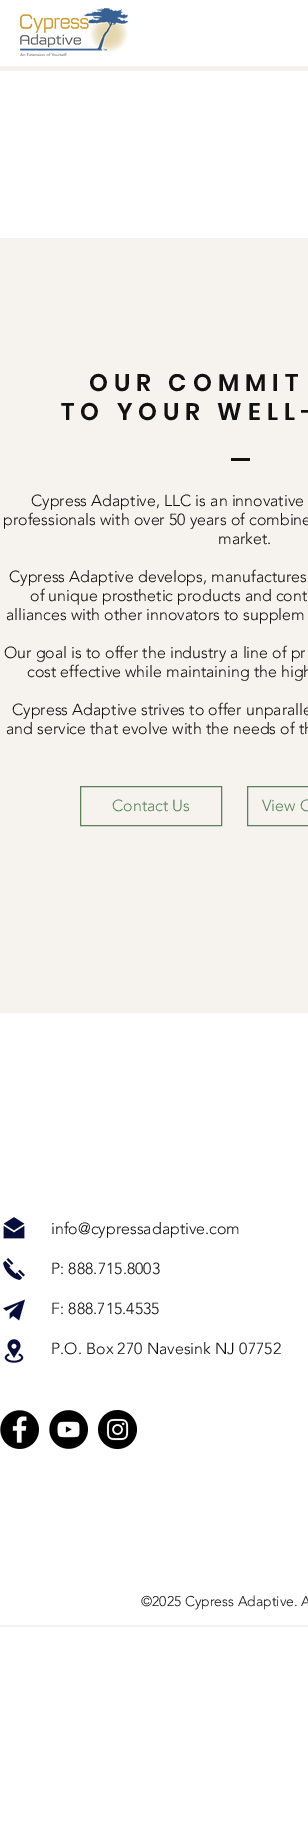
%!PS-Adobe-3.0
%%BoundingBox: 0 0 308 1835
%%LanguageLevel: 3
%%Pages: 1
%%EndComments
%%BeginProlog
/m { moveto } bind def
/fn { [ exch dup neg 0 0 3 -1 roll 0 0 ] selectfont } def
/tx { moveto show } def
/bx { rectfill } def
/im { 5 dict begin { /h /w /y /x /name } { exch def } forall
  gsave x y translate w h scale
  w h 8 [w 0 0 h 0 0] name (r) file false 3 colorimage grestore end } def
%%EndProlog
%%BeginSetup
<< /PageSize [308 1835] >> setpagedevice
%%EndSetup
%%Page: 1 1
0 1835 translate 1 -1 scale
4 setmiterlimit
1 setgray
0 0 308 1835 bx
(image0.raw) 20 8 109 48 im
0.965 0.953 0.937 setrgbcolor
0 66 308 5 bx
0 238 308 775 bx
/Poppins-SemiBold 24 fn
0.067 setgray
89 391 m 6 0 (OUR COMMIT) ashow
61 420 m 6 0 (TO YOUR WELL-) ashow
231 458 19 3 bx
/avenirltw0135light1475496-Light 16 fn
(Cypress Adaptive, LLC is an innovative) 31 506 tx
(professionals with over 50 years of combine) 3 525 tx
(market.) 218 544 tx
(Cypress Adaptive develops, manufactures) 9 582 tx
(of unique prosthetic products and cont) 30 601 tx
(alliances with other innovators to supplem) 6 620 tx
(Our goal is to offer the industry a line of pr) 4 658 tx
(cost effective while maintaining the high) 27 677 tx
(Cypress Adaptive strives to offer unparalle) 12 715 tx
(and service that evolve with the needs of th) 6 734 tx
0.349 0.51 0.353 setrgbcolor
80.5 786.5 141 39 rectstroke
(Contact Us) 112 811 tx
247.5 786.5 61 39 rectstroke
(View O) 262 811 tx
(image1.raw) 3 1217 22 22 im
0.067 setgray
(info@cypressadaptive.com) 51 1234 tx
(P: 888.715.8003) 51 1274 tx
(F: 888.715.4535) 51 1314 tx
(P.O. Box 270 Navesink NJ 07752) 51 1354 tx
(image2.raw) 3 1258 22 23 im
(image3.raw) 3 1299 23 22 im
(image4.raw) 4 1339 20 24 im
(image5.raw) 0 1410 39 39 im
(image6.raw) 49 1410 39 39 im
(image7.raw) 98 1410 39 39 im
/avenirltw0135light1475496-Light 14 fn
(©2025 Cypress Adaptive. A) 141 1606 tx
0.965 0.953 0.937 setrgbcolor
0 1625 308 2 bx
showpage
%%EOF
